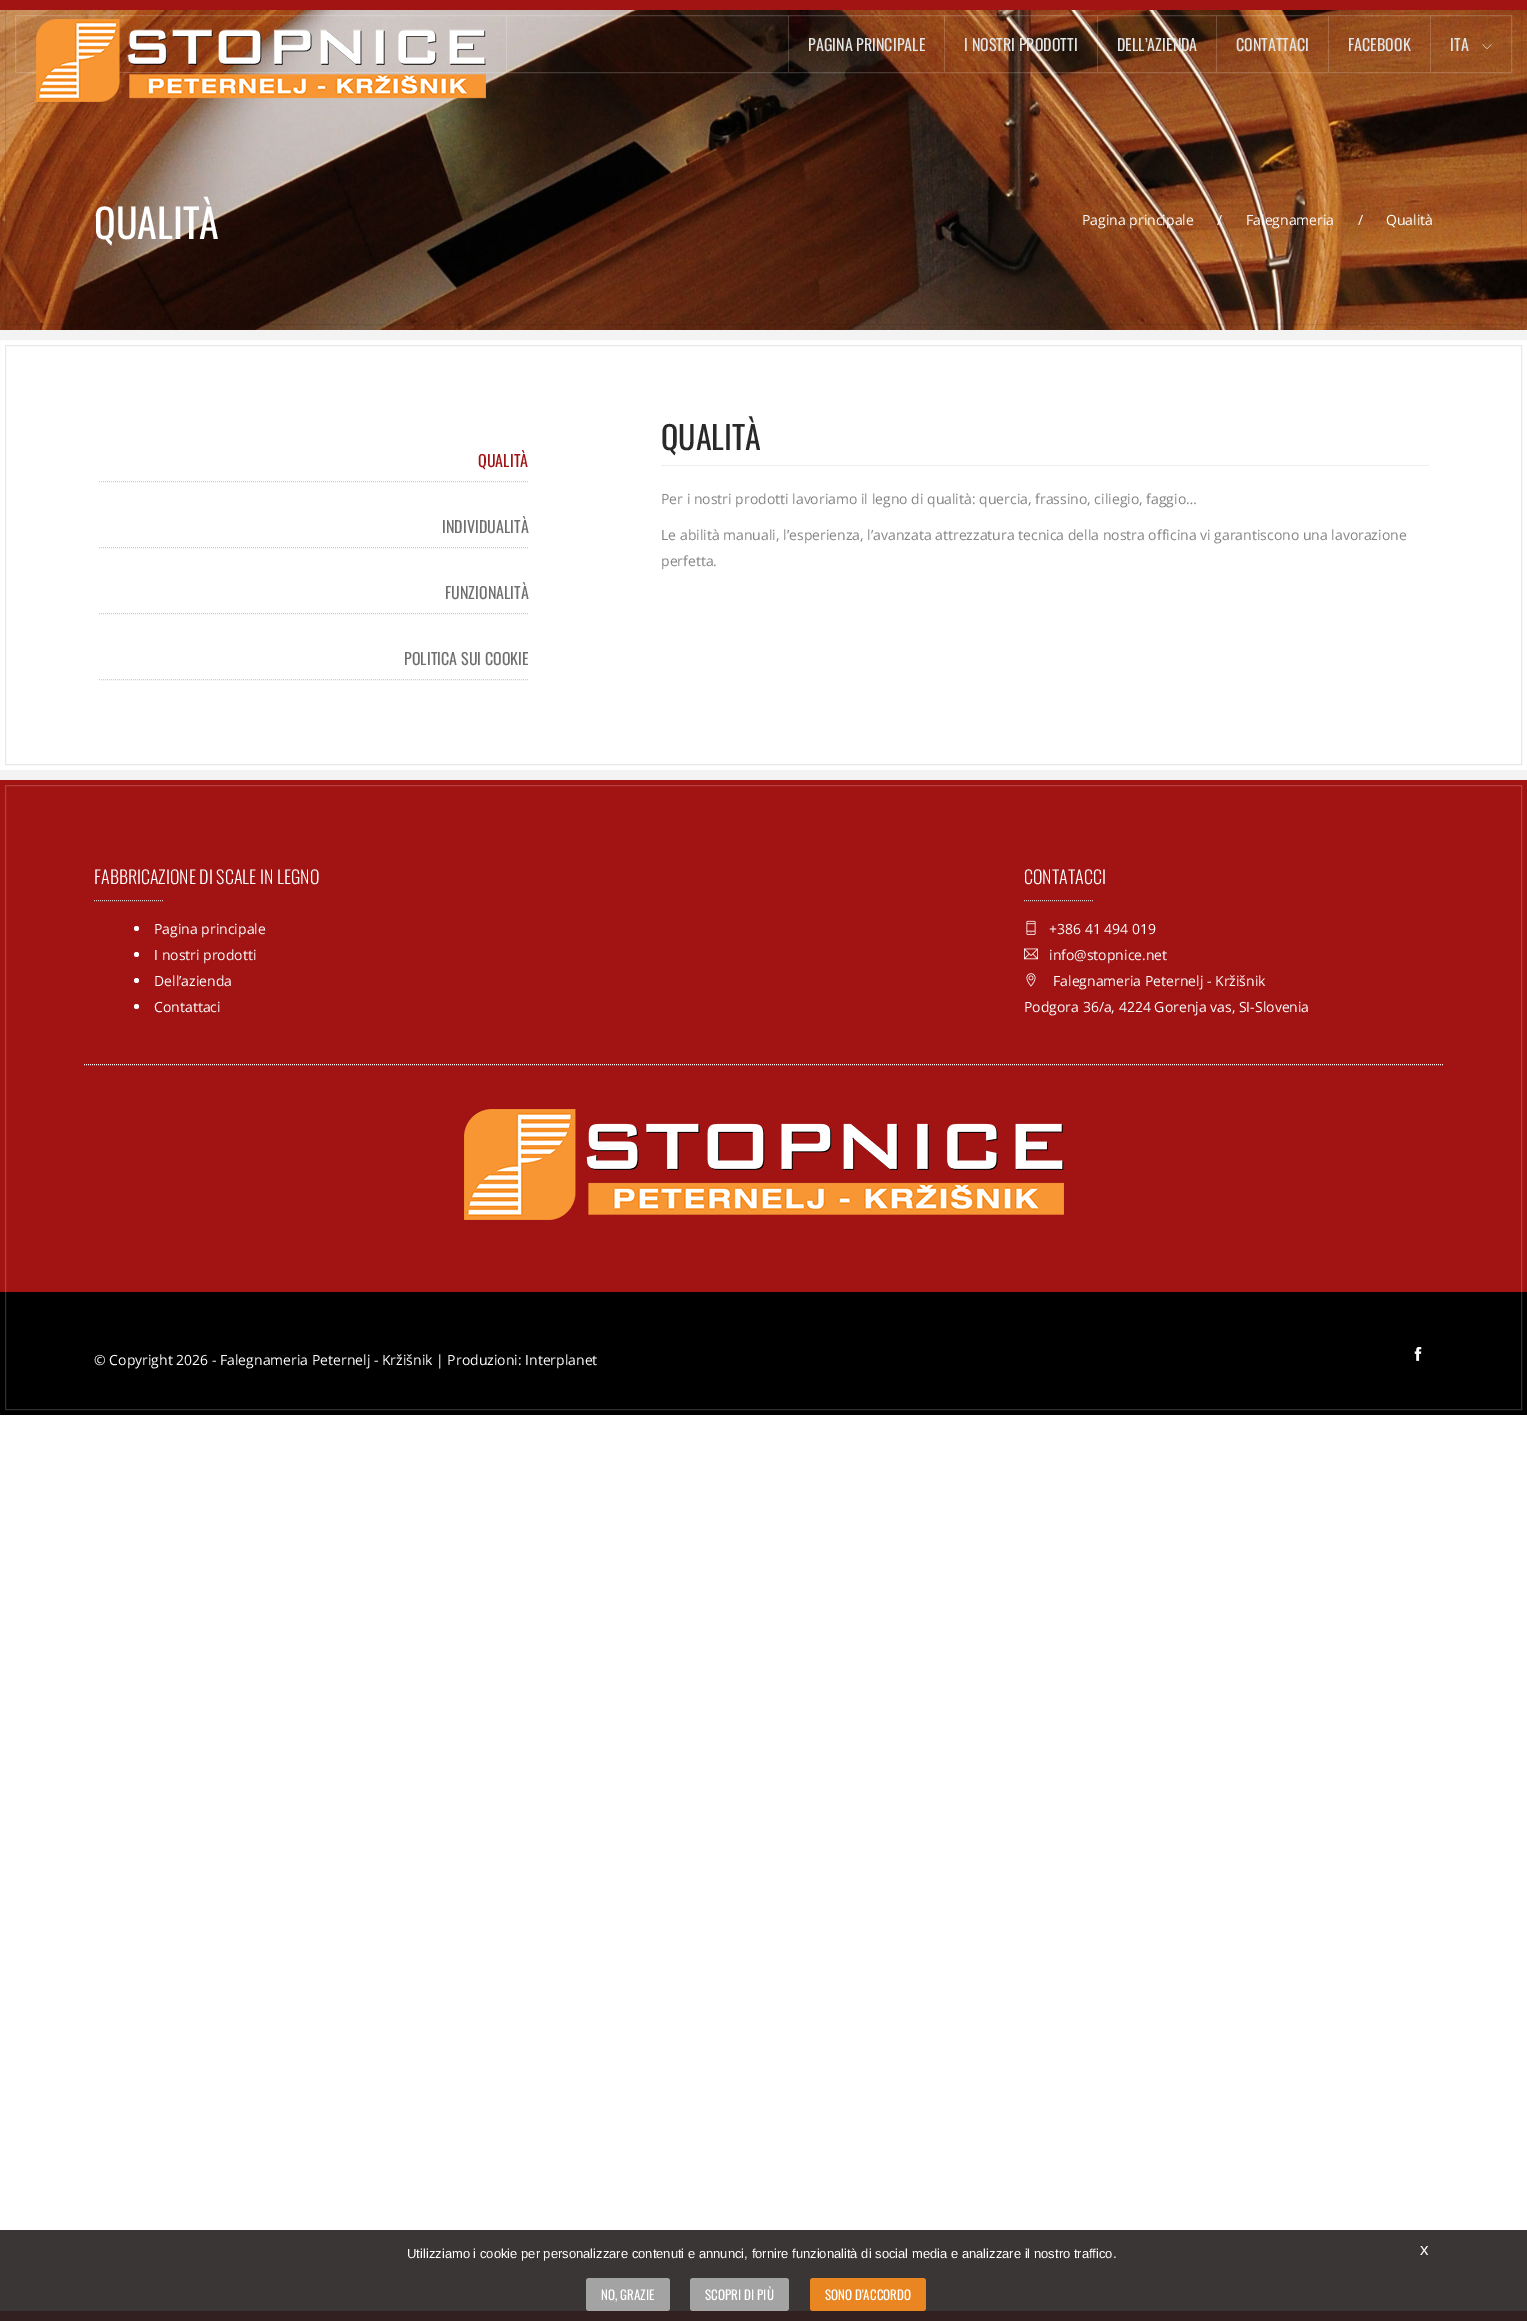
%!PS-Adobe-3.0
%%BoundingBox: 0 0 1527 2321
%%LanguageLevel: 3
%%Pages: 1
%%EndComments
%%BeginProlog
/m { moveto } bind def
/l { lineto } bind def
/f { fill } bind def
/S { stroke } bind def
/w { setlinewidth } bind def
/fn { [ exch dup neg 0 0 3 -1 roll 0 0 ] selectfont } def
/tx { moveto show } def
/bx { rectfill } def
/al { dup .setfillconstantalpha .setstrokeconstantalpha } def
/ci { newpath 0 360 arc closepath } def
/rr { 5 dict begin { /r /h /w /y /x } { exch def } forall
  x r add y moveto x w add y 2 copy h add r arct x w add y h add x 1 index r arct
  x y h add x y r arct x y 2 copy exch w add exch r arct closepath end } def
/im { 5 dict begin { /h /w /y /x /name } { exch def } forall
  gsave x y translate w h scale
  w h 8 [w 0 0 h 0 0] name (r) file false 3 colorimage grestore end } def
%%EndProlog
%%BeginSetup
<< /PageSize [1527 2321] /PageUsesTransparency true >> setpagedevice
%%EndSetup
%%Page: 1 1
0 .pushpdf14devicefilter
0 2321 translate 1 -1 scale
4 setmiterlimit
1 setgray
0 0 1527 2321 bx
0.231 0.212 0.212 setrgbcolor
0 2230 1527 81 bx
(image2.raw) 0 10 1527 320 im
0.09 al
0 setgray
5.5 5.5 1516 319 rectstroke
1 al
0.635 0.075 0.075 setrgbcolor
0 0 1527 10 bx
0.18 al
1 setgray
15.5 15.5 1496 57 rectstroke
506 16 1 56 bx
1 al
(image0.raw) 36 19 450 83 im
0.18 al
788 16 1 56 bx
/Oswald-Regular 16 fn
1 al
0.894 setgray
(PAGINA PRINCIPALE) 808 51 tx
0.18 al
1 setgray
944 16 1 56 bx
1 al
0.894 setgray
(I NOSTRI PRODOTTI) 964 51 tx
0.18 al
1 setgray
1097 16 1 56 bx
1 al
0.894 setgray
(DELL’AZIENDA) 1117 51 tx
0.18 al
1 setgray
1216 16 1 56 bx
1 al
0.894 setgray
(CONTATTACI) 1236 51 tx
0.18 al
1 setgray
1328 16 1 56 bx
1 al
0.894 setgray
(FACEBOOK) 1348 51 tx
0.18 al
1 setgray
1430 16 1 56 bx
1 al
0.894 setgray
(ITA) 1450 51 tx
(image1.raw) 1482 44 10 6 im
/Oswald-Regular 40 fn
1 setgray
(QUALITÀ) 94 239 tx
/OpenSans-Regular 14 fn
(Pagina principale) 1082 225 tx
(/) 1217 225 tx
(Falegnameria) 1246 225 tx
(/) 1358 225 tx
(Qualità) 1386 225 tx
0.953 setgray
10 w
-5 335 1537 440 rectstroke
0.91 setgray
1 w
5.5 345.5 1516 419 rectstroke
0.8 setgray
[1 1] 0 setdash
99 481.5 m 529 481.5 l S
/Oswald-Regular 16 fn
0.635 0.075 0.075 setrgbcolor
(QUALITÀ) 478 467 tx
0.8 setgray
99 547.5 m 529 547.5 l S
0.435 setgray
(INDIVIDUALITÀ) 442 533 tx
0.8 setgray
99 613.5 m 529 613.5 l S
0.435 setgray
(FUNZIONALITÀ) 445 599 tx
0.8 setgray
99 679.5 m 529 679.5 l S
0.435 setgray
(POLITICA SUI COOKIE) 404 665 tx
0.933 setgray
661 465 768 1 bx
/Oswald-Regular 32 fn
0.161 setgray
(QUALITÀ) 661 450 tx
/OpenSans-Regular 14 fn
0.518 setgray
(Per i nostri prodotti lavoriamo il legno di qualità: quercia, frassino, ciliegio, faggio…) 661 504 tx
(Le abilità manuali, l’esperienza, l’avanzata attrezzatura tecnica della nostra officina vi garantiscono una lavorazione) 661 540 tx
(perfetta.) 661 566 tx
0.635 0.075 0.075 setrgbcolor
0 780 1527 512 bx
0 setgray
0 1292 1527 123 bx
0.18 al
1 setgray
[] 0 setdash
5.5 785.5 1516 624 rectstroke
/Oswald-Light 18 fn
1 al
(FABBRICAZIONE DI SCALE IN LEGNO) 94 884 tx
0.812 setgray
[1 1] 0 setdash
94 900.5 m 164 900.5 l S
1 setgray
136.5 928.5 2.5 ci f
/OpenSans-Regular 14 fn
(Pagina principale) 154 934 tx
136.5 954.5 2.5 ci f
(I nostri prodotti) 154 960 tx
136.5 980.5 2.5 ci f
(Dell’azienda) 154 986 tx
136.5 1006.5 2.5 ci f
(Contattaci) 154 1012 tx
/Oswald-Light 18 fn
(CONTATACCI) 1024 884 tx
0.812 setgray
1024 900.5 m 1094 900.5 l S
(image3.raw) 1026 920 10 15 im
/OpenSans-Regular 14 fn
1 setgray
(+386 41 494 019) 1049 934 tx
(image4.raw) 1024 948 14 12 im
(info@stopnice.net) 1049 960 tx
(image5.raw) 1026 973 10 14 im
(Falegnameria Peternelj - Kržišnik) 1053 986 tx
(Podgora 36/a, 4224 Gorenja vas, SI-Slovenia) 1024 1012 tx
84 1064.5 m 1444 1064.5 l S
(image6.raw) 464 1109 600 111 im
(© Copyright 2026 - Falegnameria Peternelj - Kržišnik | Produzioni: Interplanet) 94 1365 tx
(image7.raw) 1414 1347 8 14 im
/LiberationSans-Regular 13 fn
(Utilizziamo i cookie per personalizzare contenuti e annunci, fornire funzionalità di social media e analizzare il nostro traffico.) 407 2258 tx
0.639 setgray
586 2278 84 33 3 rr f
/Oswald-Regular 13 fn
1 setgray
(NO, GRAZIE) 601 2300 tx
0.639 setgray
690 2278 99 33 3 rr f
1 setgray
(SCOPRI DI PIÙ) 705 2300 tx
0.918 0.525 0.133 setrgbcolor
810 2278 116 33 3 rr f
1 setgray
(SONO D'ACCORDO) 825 2300 tx
/LiberationSans-Regular 17 fn
(x) 1420 2255 tx
0.196 0.122 0.122 setrgbcolor
0 2311 1527 10 bx
.poppdf14devicefilter showpage
%%EOF
